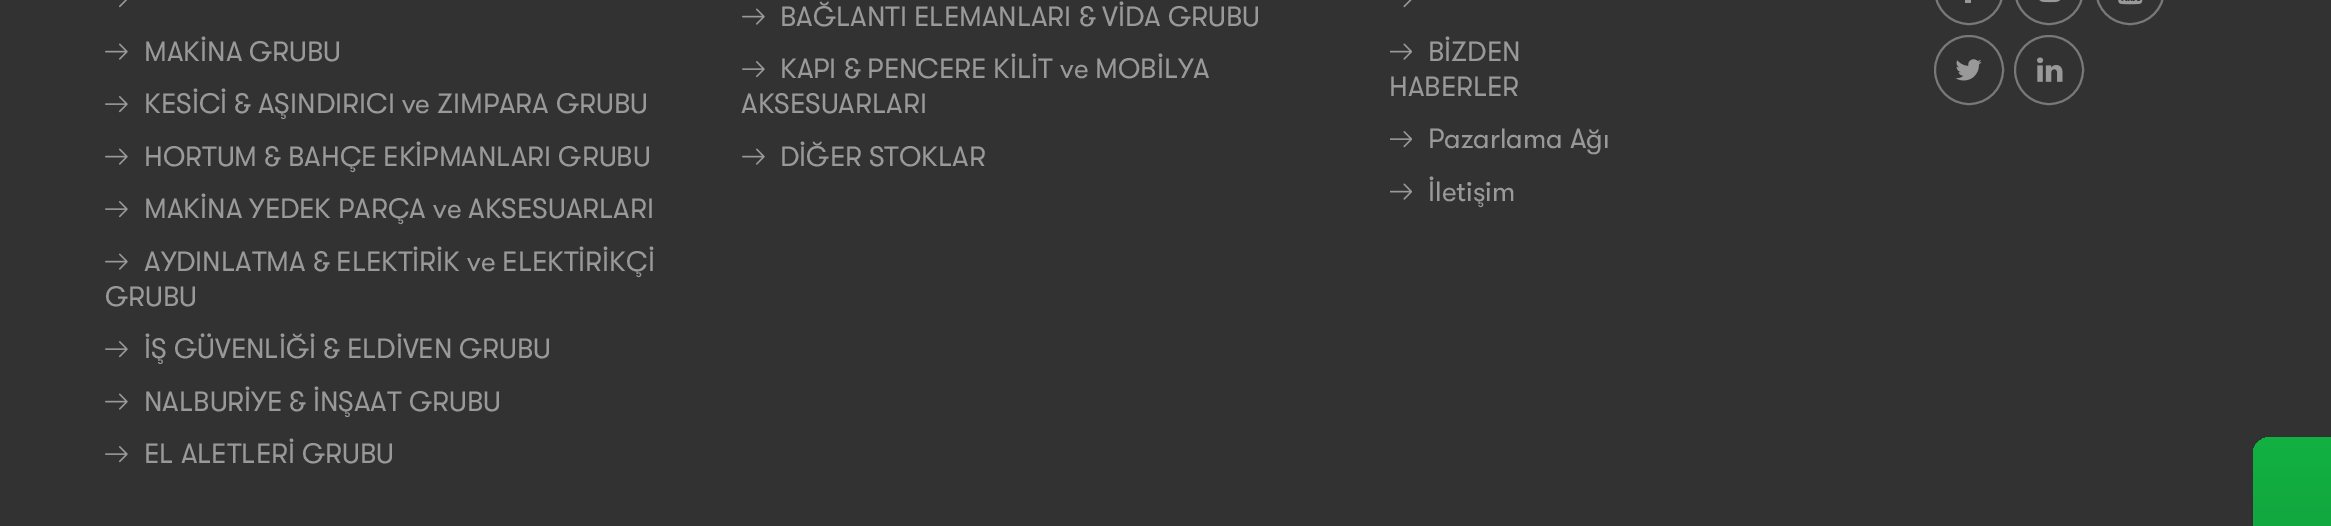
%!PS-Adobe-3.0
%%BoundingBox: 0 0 2331 526
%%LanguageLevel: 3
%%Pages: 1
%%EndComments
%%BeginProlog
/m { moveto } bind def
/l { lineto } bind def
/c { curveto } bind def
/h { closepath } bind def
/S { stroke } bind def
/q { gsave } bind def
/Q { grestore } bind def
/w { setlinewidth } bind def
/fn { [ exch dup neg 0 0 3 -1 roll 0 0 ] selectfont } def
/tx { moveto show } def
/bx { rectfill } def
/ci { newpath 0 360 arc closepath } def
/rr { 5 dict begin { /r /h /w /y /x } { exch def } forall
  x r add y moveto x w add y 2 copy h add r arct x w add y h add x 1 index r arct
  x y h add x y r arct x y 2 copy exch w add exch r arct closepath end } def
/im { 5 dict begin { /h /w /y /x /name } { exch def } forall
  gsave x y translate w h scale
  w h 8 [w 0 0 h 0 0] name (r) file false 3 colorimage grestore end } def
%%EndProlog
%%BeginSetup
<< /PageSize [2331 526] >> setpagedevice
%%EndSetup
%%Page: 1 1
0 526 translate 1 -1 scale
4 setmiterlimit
0.196 setgray
0 0 2331 526 bx
(image0.raw) 119 0 8 8 im
(image1.raw) 105 43 23 17 im
/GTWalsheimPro-Regular 28 fn
0.6 setgray
(MAKİNA GRUBU) 144 61 tx
(image2.raw) 105 96 23 17 im
(KESİCİ & AŞINDIRICI ve ZIMPARA GRUBU) 144 113 tx
(image1.raw) 105 148 23 17 im
(HORTUM & BAHÇE EKİPMANLARI GRUBU) 144 166 tx
(image2.raw) 105 201 23 17 im
(MAKİNA YEDEK PARÇA ve AKSESUARLARI) 144 218 tx
(image1.raw) 105 253 23 17 im
(AYDINLATMA & ELEKTİRİK ve ELEKTİRİKÇİ) 144 271 tx
(GRUBU) 105 306 tx
(image2.raw) 105 341 23 17 im
(İŞ GÜVENLİĞİ & ELDİVEN GRUBU) 144 358 tx
(image1.raw) 105 393 23 17 im
(NALBURİYE & İNŞAAT GRUBU) 144 411 tx
(image2.raw) 105 446 23 17 im
(EL ALETLERİ GRUBU) 144 463 tx
(image1.raw) 742 8 23 17 im
(BAĞLANTI ELEMANLARI & VİDA GRUBU) 780 26 tx
(image2.raw) 742 61 23 17 im
(KAPI & PENCERE KİLİT ve MOBİLYA) 780 78 tx
(AKSESUARLARI) 741 113 tx
(image1.raw) 742 148 23 17 im
(DİĞER STOKLAR) 780 166 tx
(image3.raw) 1403 0 9 8 im
(image4.raw) 1390 43 22 17 im
(BİZDEN) 1428 61 tx
(HABERLER) 1389 96 tx
(image5.raw) 1390 131 22 17 im
(Pazarlama Ağı) 1428 148 tx
(image4.raw) 1390 183 22 17 im
(İletişim) 1428 201 tx
0.471 setgray
2 w
1935 -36 68 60 34 rr S
0.6 setgray
1965 0 6 3 bx
0.471 setgray
2015 -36 68 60 34 rr S
(image6.raw) 2039 0 22 3 im
2096 -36 68 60 34 rr S
(image7.raw) 2118 0 25 5 im
1969 70 34 ci S
(image8.raw) 1955 59 27 22 im
2049 70 34 ci S
(image9.raw) 2037 57 26 25 im
q 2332 437 m 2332 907 l 2271 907 l 2261 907 2253 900 2253 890 c 2253 454 l 2253 444 2261 437 2271 437 c h clip newpath
<< /ShadingType 2 /ColorSpace /DeviceRGB /Coords [2293 437 2293 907] /Extend [true true] /Function << /FunctionType 2 /Domain [0 1] /C0 [0.071 0.694 0.259] /C1 [0.055 0.514 0.192] /N 1 >> >> shfill Q
showpage
%%EOF
